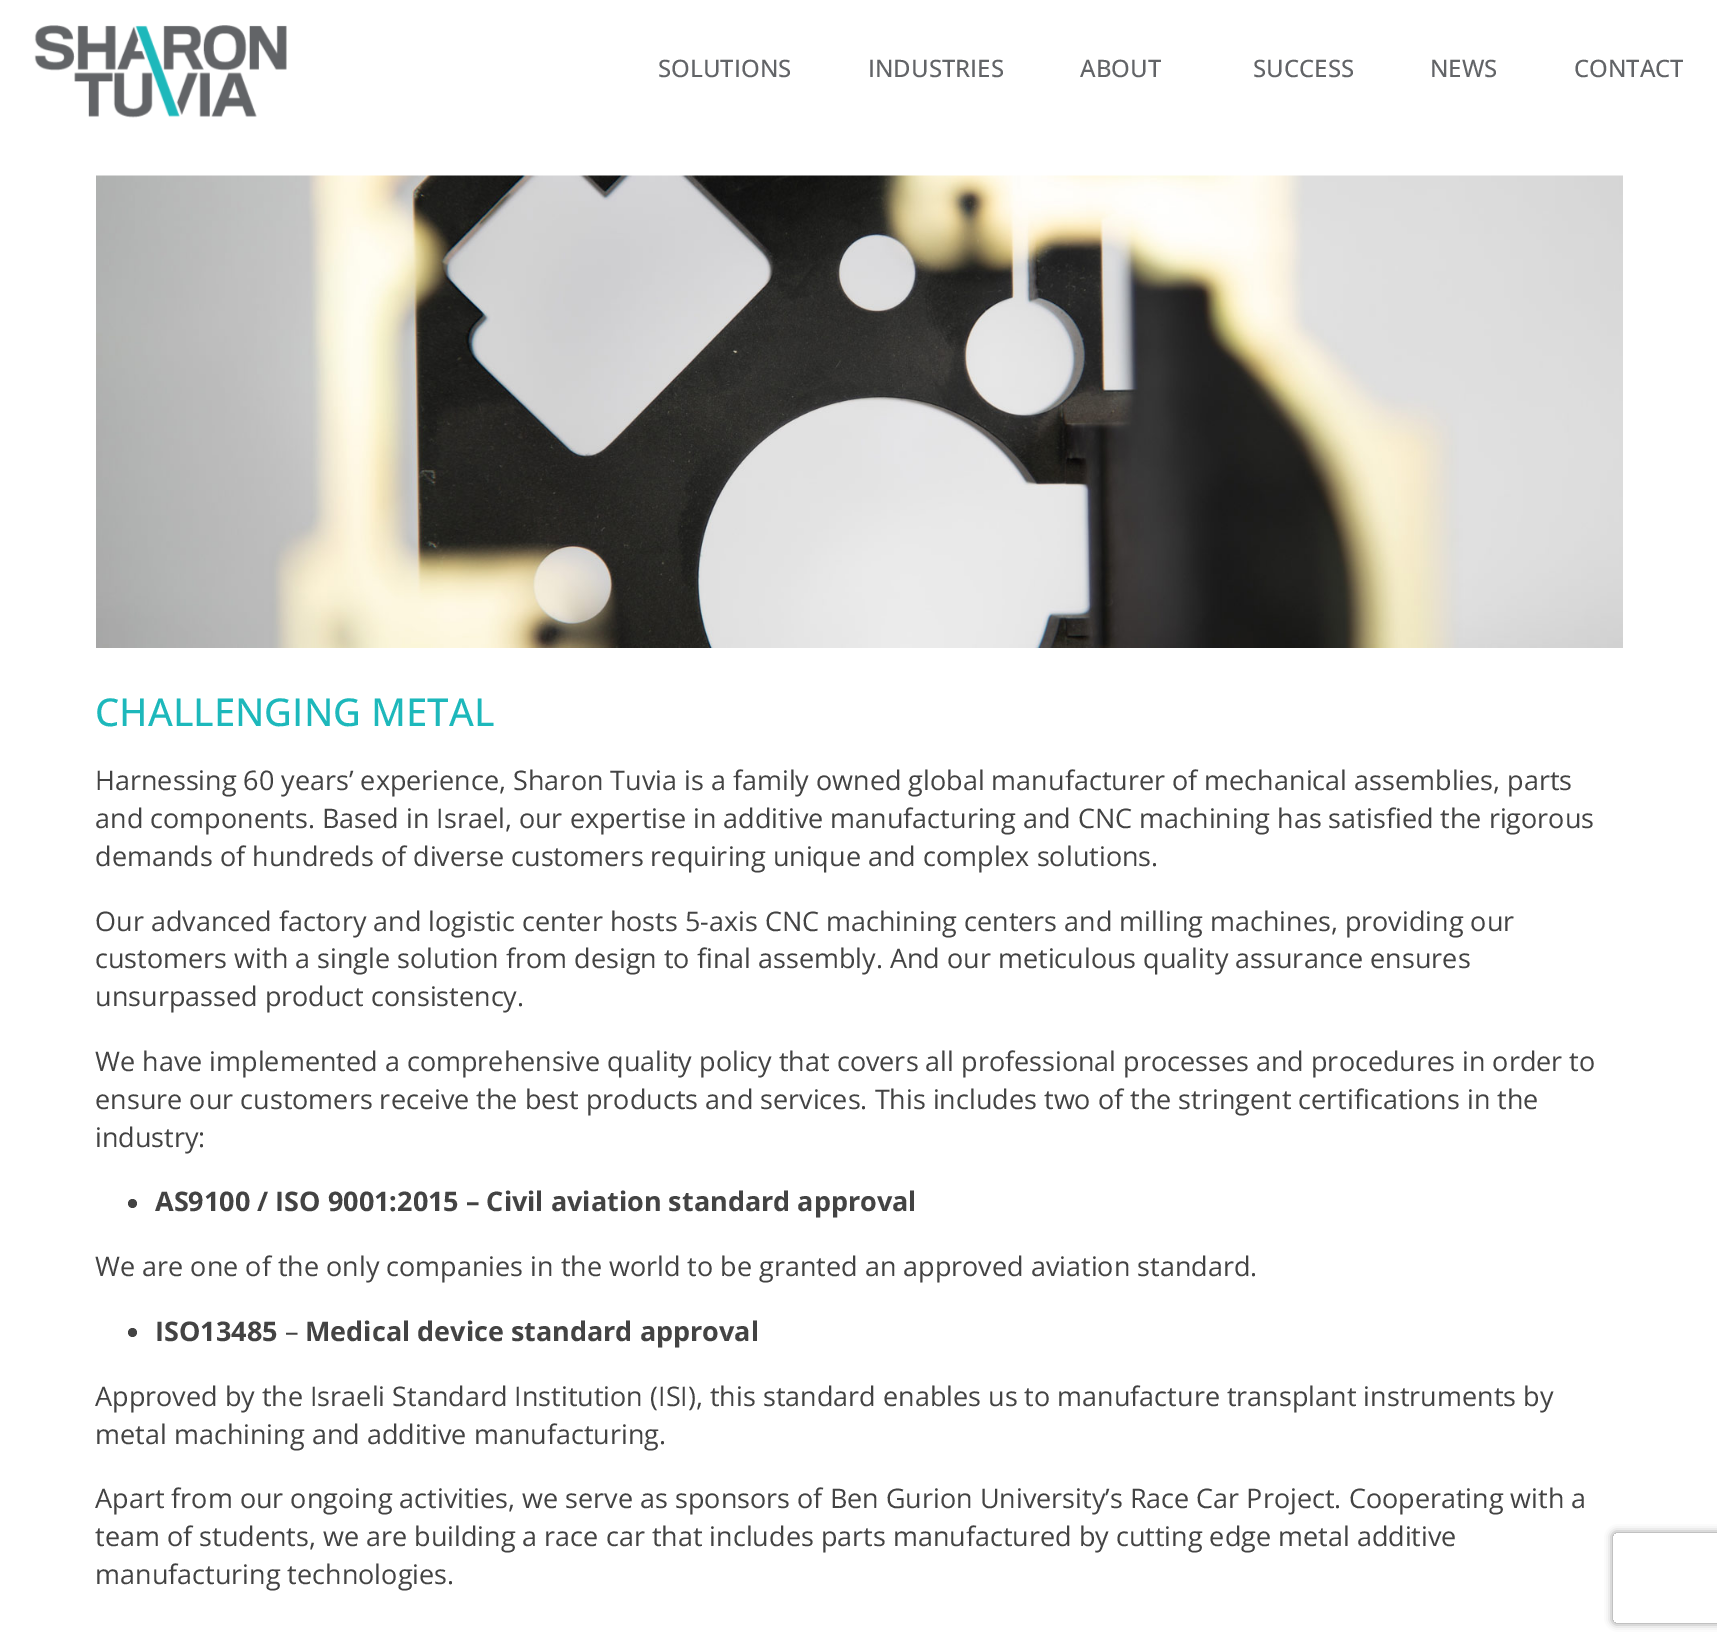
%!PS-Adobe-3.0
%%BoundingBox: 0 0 1717 1643
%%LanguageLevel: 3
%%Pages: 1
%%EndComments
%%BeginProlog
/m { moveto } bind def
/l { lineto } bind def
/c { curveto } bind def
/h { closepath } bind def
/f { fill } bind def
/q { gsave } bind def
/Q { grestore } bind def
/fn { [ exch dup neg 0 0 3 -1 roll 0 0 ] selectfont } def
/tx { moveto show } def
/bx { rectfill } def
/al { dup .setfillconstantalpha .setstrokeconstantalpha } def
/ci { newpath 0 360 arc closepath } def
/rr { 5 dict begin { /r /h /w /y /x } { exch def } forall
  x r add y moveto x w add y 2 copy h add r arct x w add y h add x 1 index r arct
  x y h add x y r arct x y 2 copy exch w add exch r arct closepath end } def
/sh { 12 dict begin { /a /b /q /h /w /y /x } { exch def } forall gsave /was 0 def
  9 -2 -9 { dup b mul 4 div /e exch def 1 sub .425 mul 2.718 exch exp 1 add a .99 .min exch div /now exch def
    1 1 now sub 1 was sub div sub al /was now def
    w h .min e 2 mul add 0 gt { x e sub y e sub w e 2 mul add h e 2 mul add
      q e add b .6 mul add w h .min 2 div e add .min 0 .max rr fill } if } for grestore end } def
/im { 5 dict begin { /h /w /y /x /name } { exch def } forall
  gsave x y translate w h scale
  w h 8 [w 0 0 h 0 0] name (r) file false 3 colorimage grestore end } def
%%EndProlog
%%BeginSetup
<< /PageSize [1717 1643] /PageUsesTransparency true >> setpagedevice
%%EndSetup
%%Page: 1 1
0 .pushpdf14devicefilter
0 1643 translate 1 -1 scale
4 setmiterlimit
1 setgray
0 0 1717 1643 bx
(image0.raw) 34 25 253 93 im
/OpenSans-Medium 24 fn
0.384 0.392 0.404 setrgbcolor
(SOLUTIONS) 658 77 tx
(INDUSTRIES) 868 77 tx
(ABOUT) 1080 77 tx
(SUCCESS) 1253 77 tx
(NEWS) 1430 77 tx
(CONTACT) 1574 77 tx
(image1.raw) 96 175 1527 473 im
/OpenSans-Medium 38.4 fn
0.114 0.722 0.733 setrgbcolor
(CHALLENGING METAL) 95 726 tx
/OpenSans-Regular 27 fn
0.263 setgray
(Harnessing 60 years’ experience, Sharon Tuvia is a family owned global manufacturer of mechanical assemblies, parts) 95 790 tx
(and components. Based in Israel, our expertise in additive manufacturing and CNC machining has satisfied the rigorous) 95 828 tx
(demands of hundreds of diverse customers requiring unique and complex solutions.) 95 866 tx
(Our advanced factory and logistic center hosts 5-axis CNC machining centers and milling machines, providing our) 95 931 tx
(customers with a single solution from design to final assembly. And our meticulous quality assurance ensures) 95 968 tx
(unsurpassed product consistency.) 95 1006 tx
(We have implemented a comprehensive quality policy that covers all professional processes and procedures in order to) 95 1071 tx
(ensure our customers receive the best products and services. This includes two of the stringent certifications in the) 95 1109 tx
(industry:) 95 1147 tx
132.5 1203.5 4.5 ci f
/OpenSans-Bold 27 fn
(AS9100 / ISO 9001:2015 – Civil aviation standard approval) 155 1211 tx
/OpenSans-Regular 27 fn
(We are one of the only companies in the world to be granted an approved aviation standard.) 95 1276 tx
132.5 1332.5 4.5 ci f
/OpenSans-Bold 27 fn
(ISO13485) 155 1341 tx
/OpenSans-Regular 27 fn
(–) 285 1341 tx
/OpenSans-Bold 27 fn
(Medical device standard approval) 305 1341 tx
/OpenSans-Regular 27 fn
(Approved by the Israeli Standard Institution \(ISI\), this standard enables us to manufacture transplant instruments by) 95 1406 tx
(metal machining and additive manufacturing.) 95 1444 tx
(Apart from our ongoing activities, we serve as sponsors of Ben Gurion University’s Race Car Project. Cooperating with a) 95 1508 tx
(team of students, we are building a race car that includes parts manufactured by cutting edge metal additive) 95 1546 tx
(manufacturing technologies.) 95 1584 tx
q
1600 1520 m 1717 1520 l 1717 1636 l 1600 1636 l h 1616 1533 m 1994 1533 l 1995.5 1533 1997 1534.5 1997 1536 c 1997 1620 l 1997 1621.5 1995.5 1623 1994 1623 c 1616 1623 l 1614.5 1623 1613 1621.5 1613 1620 c 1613 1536 l 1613 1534.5 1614.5 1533 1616 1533 c h eoclip newpath
0.502 setgray
1613 1533 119 90 3 4 1 sh
Q
.poppdf14devicefilter showpage
%%EOF
